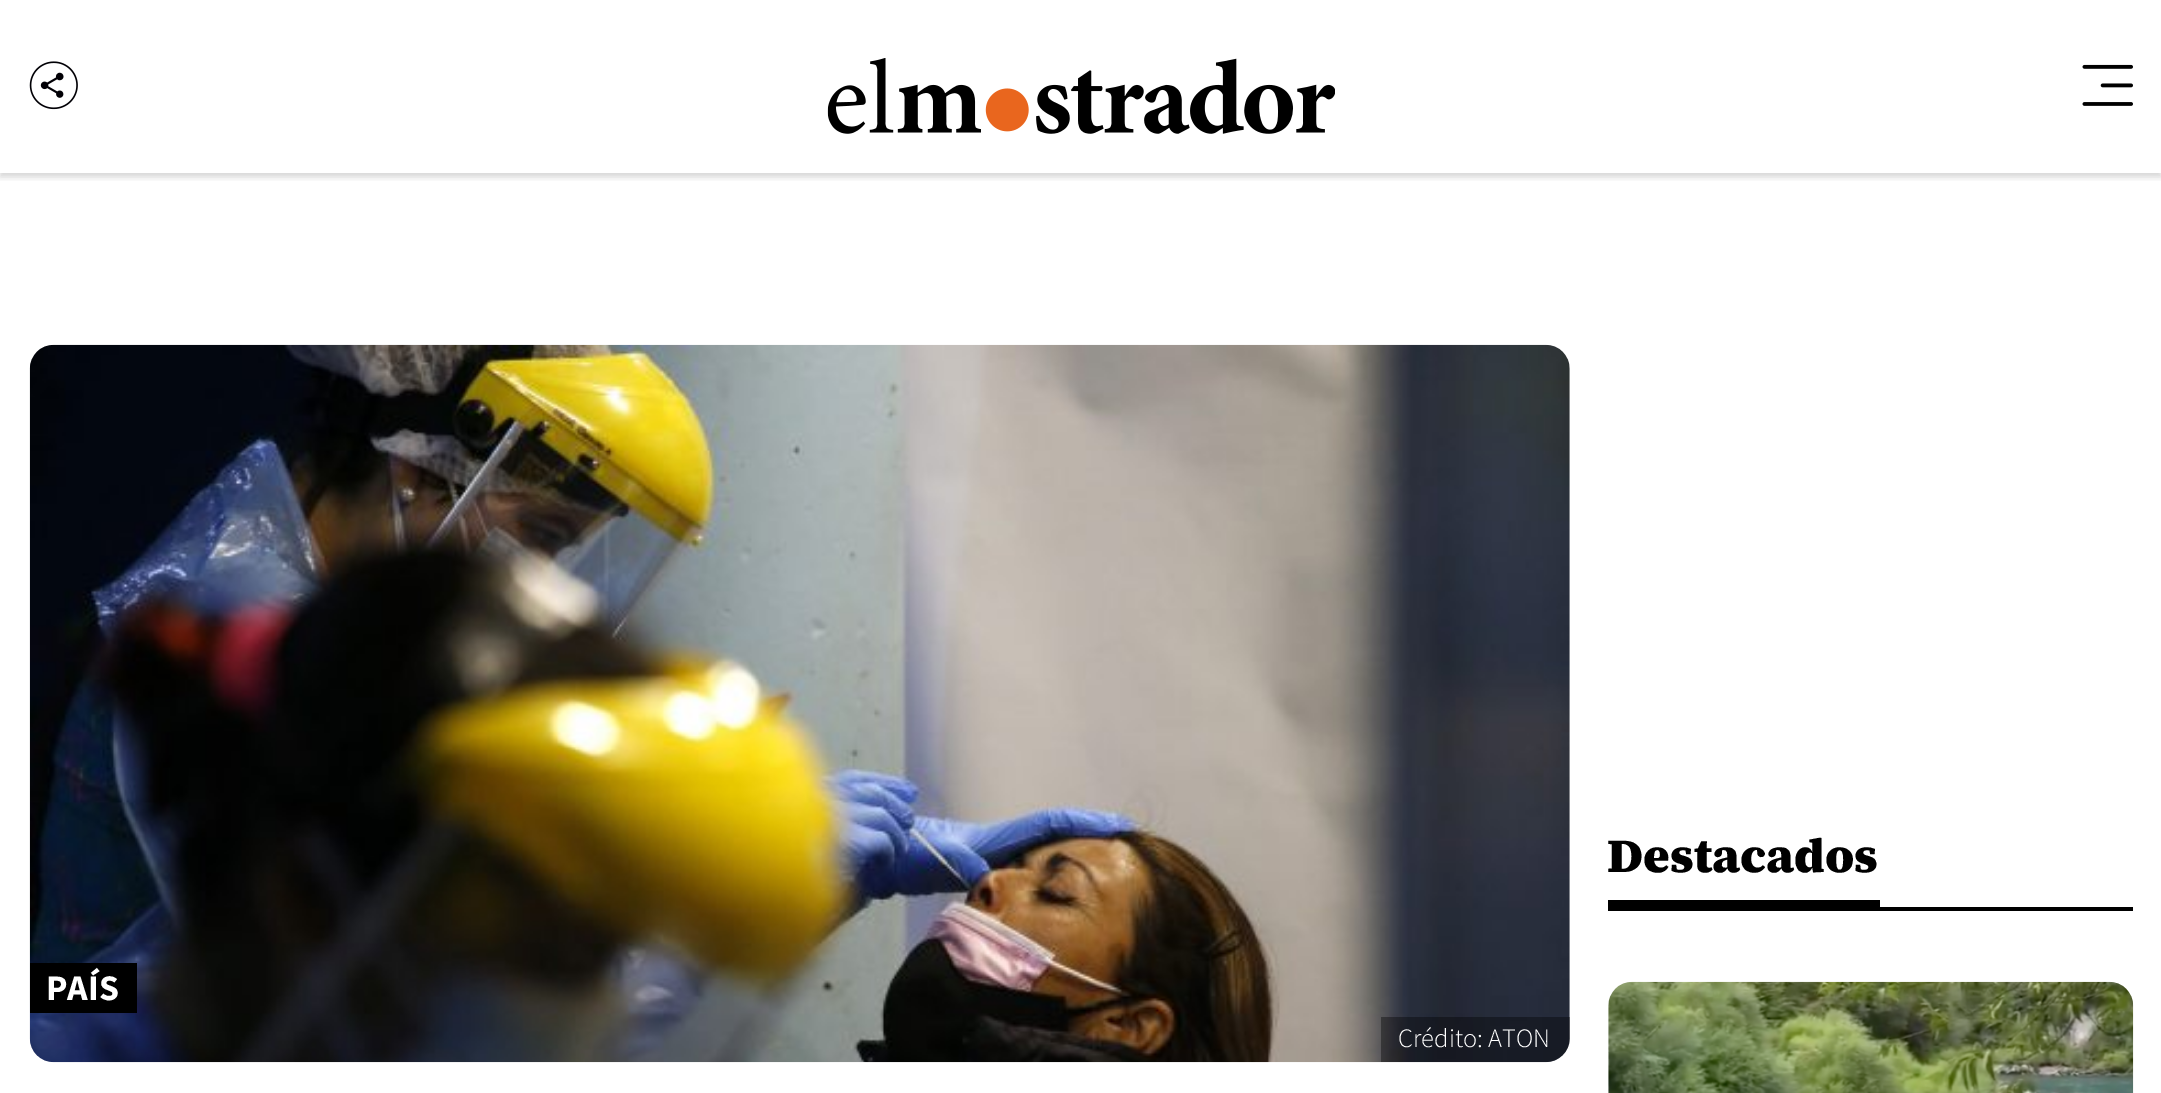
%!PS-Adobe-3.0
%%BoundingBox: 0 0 2161 1093
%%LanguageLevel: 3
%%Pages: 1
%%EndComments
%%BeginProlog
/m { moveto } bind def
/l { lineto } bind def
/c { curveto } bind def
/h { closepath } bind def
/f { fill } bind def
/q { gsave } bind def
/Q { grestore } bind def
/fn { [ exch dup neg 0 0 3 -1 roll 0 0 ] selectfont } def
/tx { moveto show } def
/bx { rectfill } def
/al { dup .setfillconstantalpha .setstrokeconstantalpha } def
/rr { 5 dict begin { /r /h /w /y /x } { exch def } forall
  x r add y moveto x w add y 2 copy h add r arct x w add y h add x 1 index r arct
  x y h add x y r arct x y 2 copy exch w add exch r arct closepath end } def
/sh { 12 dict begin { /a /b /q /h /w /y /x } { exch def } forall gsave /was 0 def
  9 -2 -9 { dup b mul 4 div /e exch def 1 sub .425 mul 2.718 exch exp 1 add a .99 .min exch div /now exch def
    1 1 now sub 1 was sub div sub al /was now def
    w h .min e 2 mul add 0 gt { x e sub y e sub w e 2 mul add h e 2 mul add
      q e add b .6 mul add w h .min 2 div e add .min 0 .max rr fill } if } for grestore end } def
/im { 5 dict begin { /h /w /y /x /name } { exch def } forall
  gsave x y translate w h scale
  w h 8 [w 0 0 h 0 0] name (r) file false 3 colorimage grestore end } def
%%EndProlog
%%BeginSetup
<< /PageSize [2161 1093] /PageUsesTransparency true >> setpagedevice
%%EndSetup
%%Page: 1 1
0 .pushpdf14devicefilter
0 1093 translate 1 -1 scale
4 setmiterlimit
1 setgray
0 0 2161 1093 bx
q
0 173 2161 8 rectclip
0 setgray
0 4 2161 173 0 3.5 0.16 sh
Q
(image0.raw) 29 61 49 49 im
(image1.raw) 827 58 508 76 im
(image2.raw) 2082 64 51 42 im
0 setgray
1608 907 525 4 bx
1608 900 272 7 bx
/SourceSerif4-Black 48 fn
(Destacados) 1607 872 tx
(image3.raw) 1608 981 526 112 im
(image4.raw) 29 344 1541 719 im
30 963 107 50 bx
/SourceSansPro-Bold 36 fn
1 setgray
(PAÍS) 46 1000 tx
0.37 al
0 setgray
1381 1017 m 1570 1017 l 1570 1037 l 1570 1051 1559 1062 1545 1062 c 1381 1062 l h f
/SourceSansPro-Light 26.5 fn
1 al
1 setgray
(Crédito: ATON) 1398 1047 tx
.poppdf14devicefilter showpage
%%EOF
